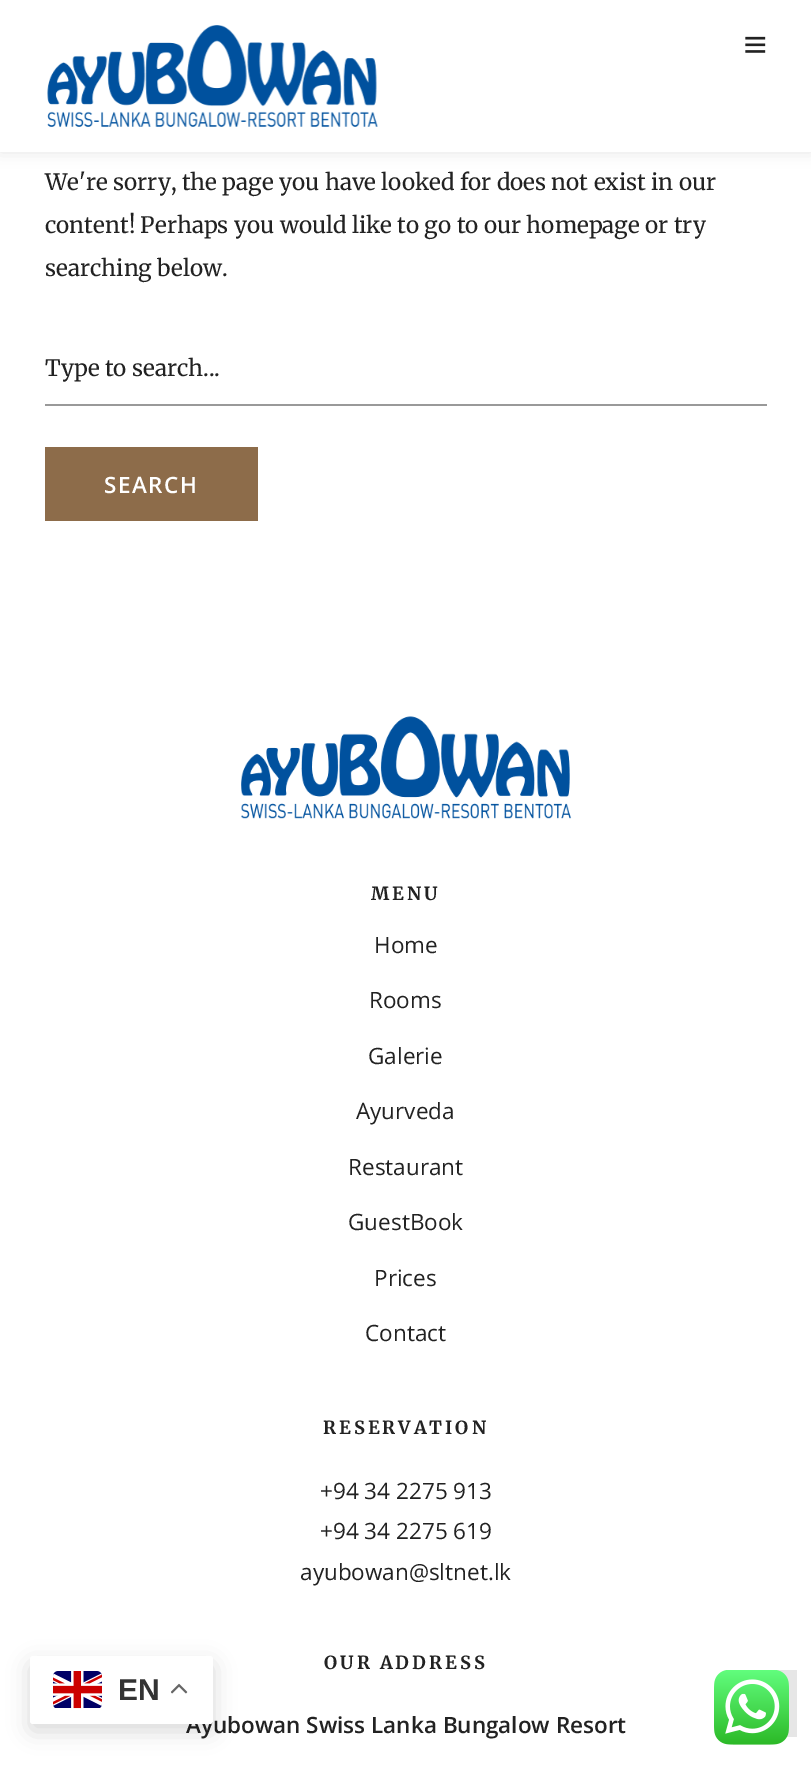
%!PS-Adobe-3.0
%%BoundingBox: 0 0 811 1767
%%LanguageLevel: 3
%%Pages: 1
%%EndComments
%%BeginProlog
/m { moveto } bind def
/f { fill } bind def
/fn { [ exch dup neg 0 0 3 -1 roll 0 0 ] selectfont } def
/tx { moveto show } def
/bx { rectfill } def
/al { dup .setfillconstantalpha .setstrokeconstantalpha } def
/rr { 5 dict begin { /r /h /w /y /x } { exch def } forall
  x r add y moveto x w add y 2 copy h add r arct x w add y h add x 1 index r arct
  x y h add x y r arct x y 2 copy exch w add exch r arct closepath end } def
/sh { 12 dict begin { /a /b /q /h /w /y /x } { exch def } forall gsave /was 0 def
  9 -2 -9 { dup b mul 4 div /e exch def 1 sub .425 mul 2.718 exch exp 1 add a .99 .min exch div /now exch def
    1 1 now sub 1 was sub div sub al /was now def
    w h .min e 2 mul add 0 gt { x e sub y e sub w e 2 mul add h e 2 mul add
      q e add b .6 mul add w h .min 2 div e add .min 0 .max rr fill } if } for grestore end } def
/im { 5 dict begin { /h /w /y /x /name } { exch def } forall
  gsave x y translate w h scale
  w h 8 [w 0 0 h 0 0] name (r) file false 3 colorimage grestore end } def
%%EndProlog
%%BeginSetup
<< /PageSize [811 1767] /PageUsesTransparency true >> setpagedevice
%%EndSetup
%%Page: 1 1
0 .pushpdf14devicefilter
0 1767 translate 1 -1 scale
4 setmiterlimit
1 setgray
0 0 811 1767 bx
0.004 setgray
0 0 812 152 0 7.5 0.1 sh
1 setgray
0 0 811 152 bx
(image0.raw) 47 25 331 102 im
(image1.raw) 745 36 21 17 im
/Merriweather-Regular 22.5 fn
0.133 setgray
(We're sorry, the page you have looked for does not exist in our) 45 190 tx
(content! Perhaps you would like to go to our homepage or try) 45 233 tx
(searching below.) 45 276 tx
0.6 setgray
45 404 722 2 bx
0.133 setgray
(Type to search...) 45 376 tx
0.553 0.424 0.29 setrgbcolor
45 447 213 74 bx
/OpenSans-SemiBold 22.5 fn
1 setgray
104 493 m 1.5 0 (SEARCH) ashow
(image2.raw) 241 716 331 103 im
/Merriweather-Bold 18 fn
0.133 setgray
371 900 m 3 0 (MENU) ashow
/OpenSans-Regular 22.5 fn
(Home) 374 953 tx
(Rooms) 369 1008 tx
(Galerie) 368 1064 tx
(Ayurveda) 356 1119 tx
(Restaurant) 348 1175 tx
(GuestBook) 348 1230 tx
(Prices) 374 1286 tx
(Contact) 365 1341 tx
/Merriweather-Bold 18 fn
323 1434 m 3 0 (RESERVATION) ashow
/OpenSans-Regular 22.5 fn
(+94 34 2275 913) 320 1499 tx
(+94 34 2275 619) 320 1539 tx
(ayubowan@sltnet.lk) 300 1580 tx
/Merriweather-Bold 18 fn
324 1669 m 3 0 (OUR ADDRESS) ashow
/OpenSans-SemiBold 22.5 fn
(Ayubowan Swiss Lanka Bungalow Resort) 186 1733 tx
0.902 setgray
776 1670 21 67 bx
(image3.raw) 714 1670 75 75 im
0 setgray
30 1664 183 67 3 11 0.15 sh
1 setgray
30 1656 183 68 3 rr f
(image4.raw) 53 1671 49 38 im
/LiberationSans-Bold 30 fn
0.2 setgray
(EN) 118 1700 tx
(image5.raw) 171 1683 17 11 im
.poppdf14devicefilter showpage
%%EOF
